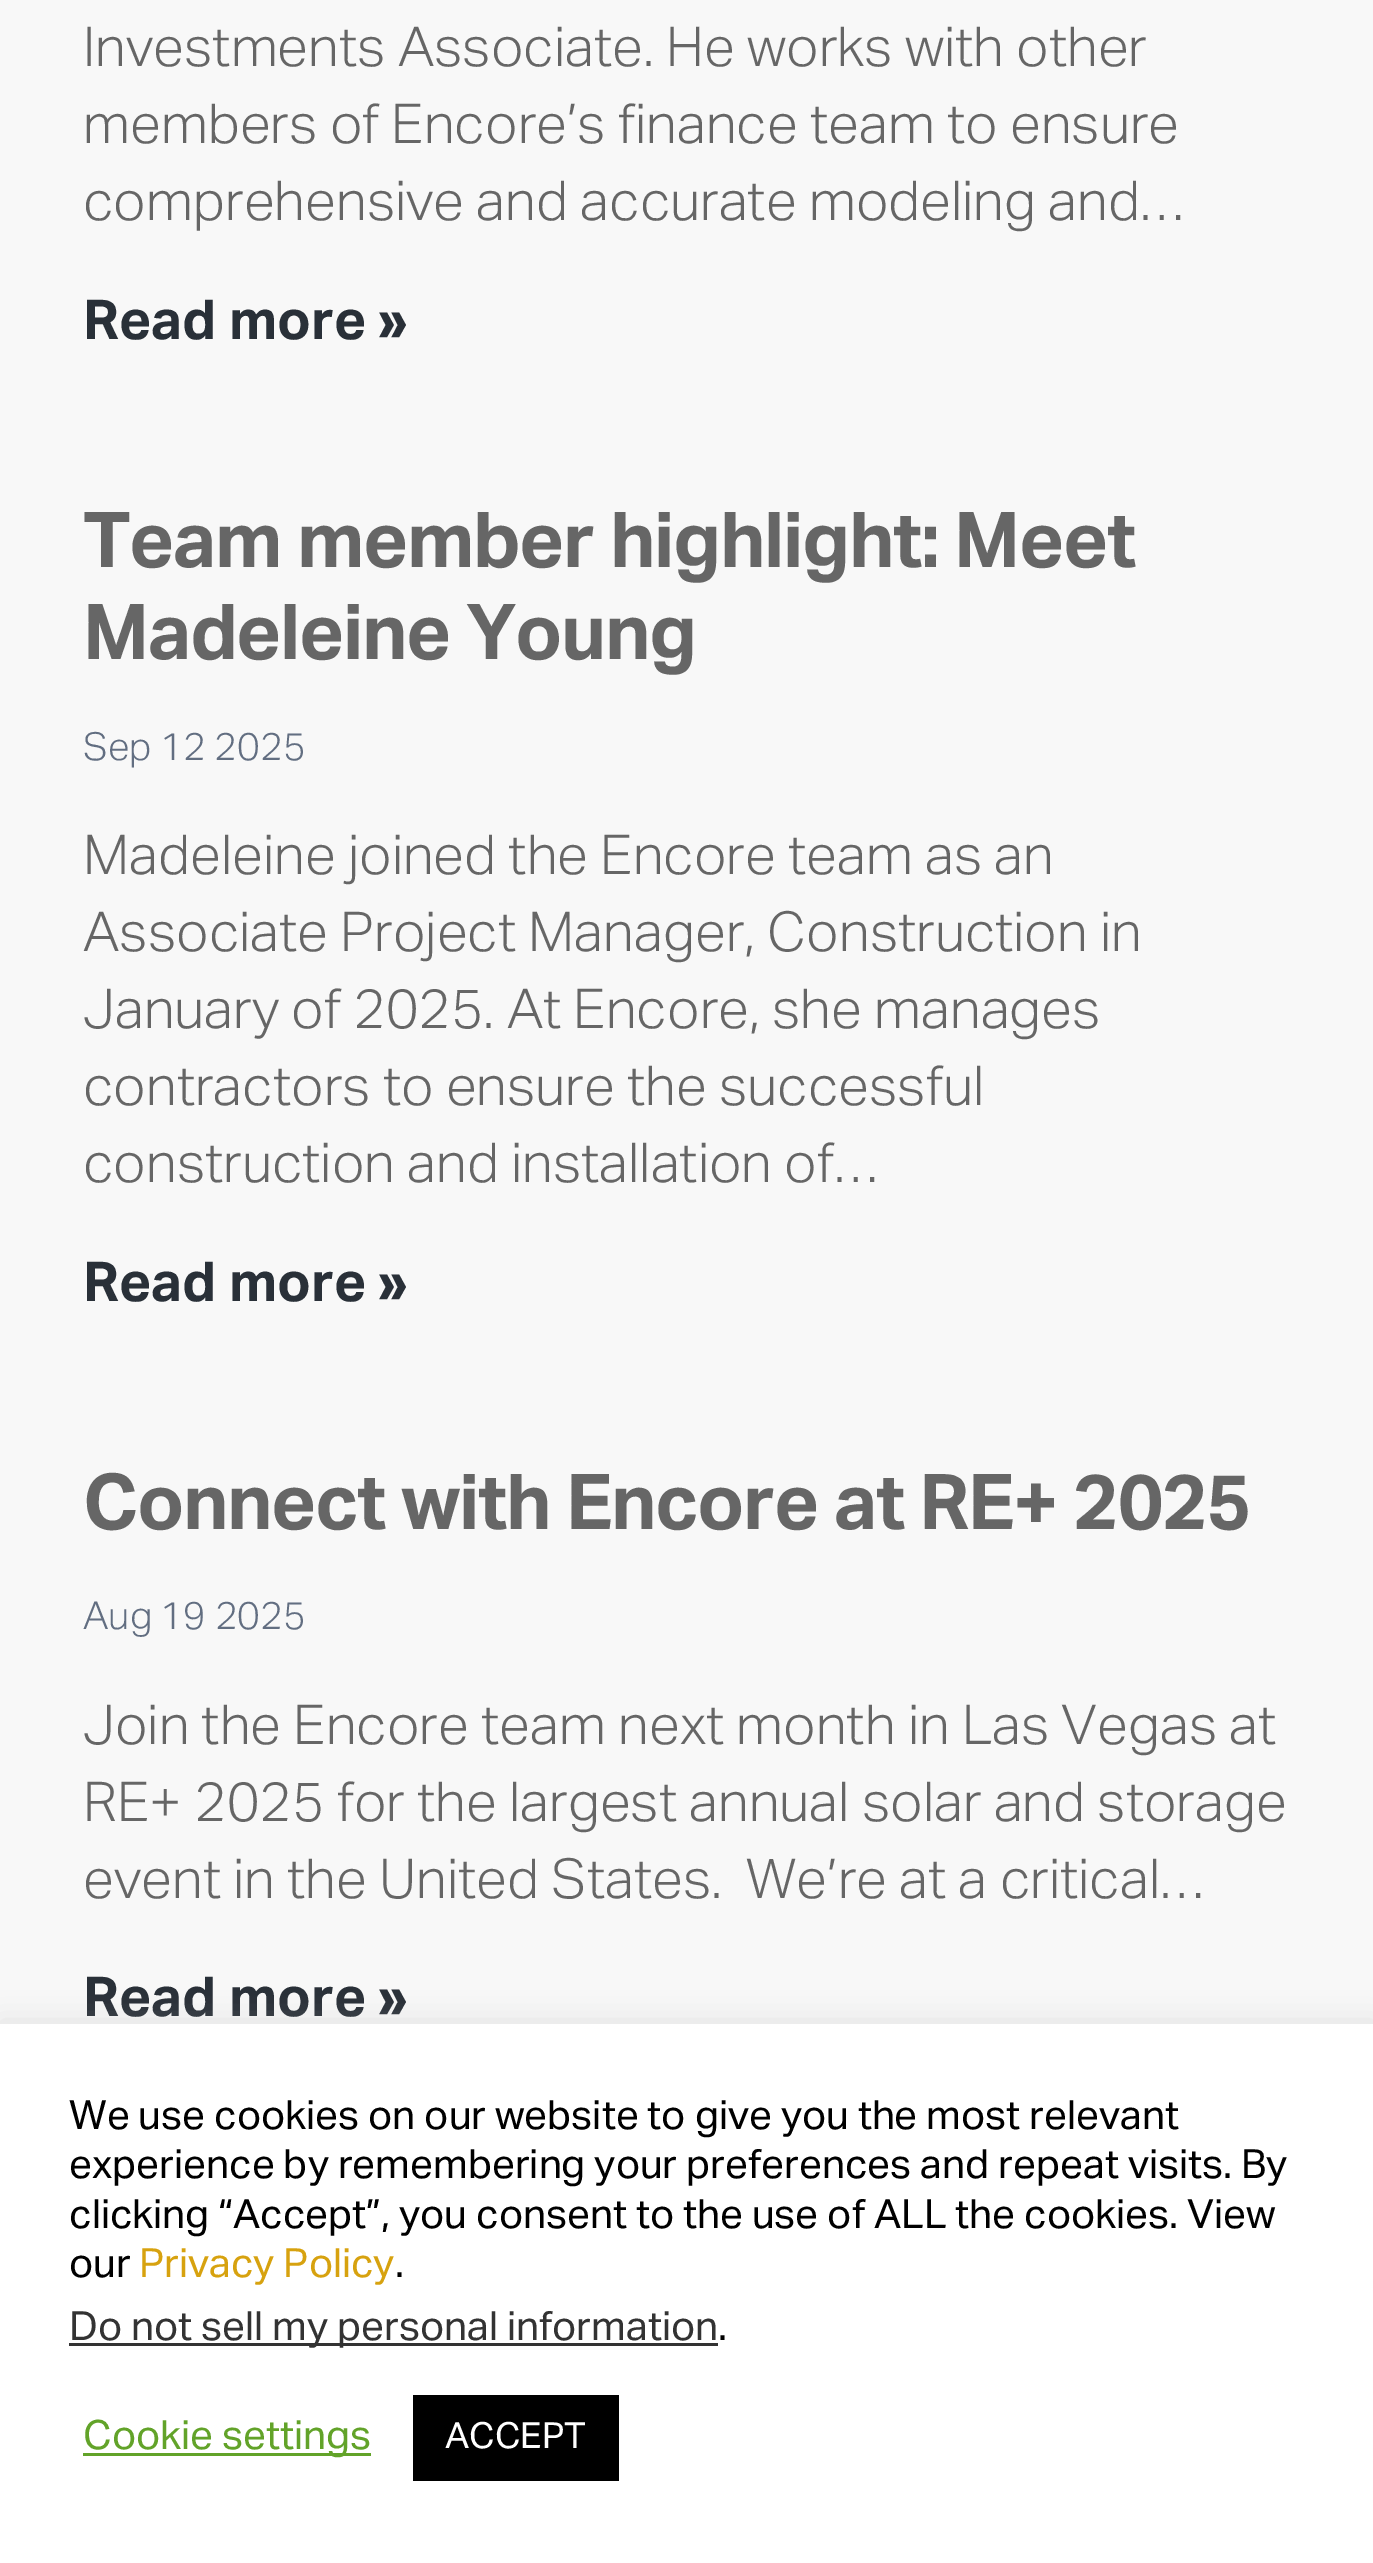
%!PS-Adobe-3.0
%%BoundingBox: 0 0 1373 2563
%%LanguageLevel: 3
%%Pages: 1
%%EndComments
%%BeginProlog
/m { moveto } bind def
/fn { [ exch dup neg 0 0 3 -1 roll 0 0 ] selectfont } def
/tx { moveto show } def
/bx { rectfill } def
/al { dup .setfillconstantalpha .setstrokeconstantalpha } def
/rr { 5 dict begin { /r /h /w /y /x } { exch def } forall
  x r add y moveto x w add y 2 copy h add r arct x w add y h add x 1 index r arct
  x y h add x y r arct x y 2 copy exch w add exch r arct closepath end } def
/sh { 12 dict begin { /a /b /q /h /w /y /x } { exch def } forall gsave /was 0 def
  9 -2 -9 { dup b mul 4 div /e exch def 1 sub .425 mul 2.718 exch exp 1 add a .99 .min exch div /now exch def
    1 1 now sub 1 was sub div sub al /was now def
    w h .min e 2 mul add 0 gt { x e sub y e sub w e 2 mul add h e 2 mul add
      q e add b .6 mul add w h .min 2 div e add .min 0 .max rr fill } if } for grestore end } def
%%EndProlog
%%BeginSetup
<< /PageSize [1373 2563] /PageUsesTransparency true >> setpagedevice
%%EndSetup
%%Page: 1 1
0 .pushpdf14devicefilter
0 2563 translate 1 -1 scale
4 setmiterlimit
0.973 setgray
0 0 1373 2563 bx
/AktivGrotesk-Light 55 fn
0.4 setgray
(Investments Associate. He works with other) 83 66 tx
(members of Encore’s finance team to ensure) 83 143 tx
(comprehensive and accurate modeling and…) 83 220 tx
/AktivGrotesk-Bold 55 fn
0.161 0.188 0.22 setrgbcolor
(Read more ») 83 339 tx
/AktivGrotesk-Bold 77 fn
0.4 setgray
83 567 m -1.4 0 (Team member highlight: Meet) ashow
83 659 m -1.4 0 (Madeleine Young) ashow
/AktivGrotesk-Light 38.5 fn
0.384 0.431 0.506 setrgbcolor
(Sep 12 2025) 83 760 tx
/AktivGrotesk-Light 55 fn
0.4 setgray
(Madeleine joined the Encore team as an) 83 874 tx
(Associate Project Manager, Construction in) 83 951 tx
(January of 2025. At Encore, she manages) 83 1028 tx
(contractors to ensure the successful) 83 1105 tx
(construction and installation of…) 83 1182 tx
/AktivGrotesk-Bold 55 fn
0.161 0.188 0.22 setrgbcolor
(Read more ») 83 1301 tx
/AktivGrotesk-Bold 77 fn
0.4 setgray
83 1529 m -1.4 0 (Connect with Encore at RE+ 2025) ashow
/AktivGrotesk-Light 38.5 fn
0.384 0.431 0.506 setrgbcolor
(Aug 19 2025) 83 1629 tx
/AktivGrotesk-Light 55 fn
0.4 setgray
(Join the Encore team next month in Las Vegas at) 83 1744 tx
(RE+ 2025 for the largest annual solar and storage) 83 1821 tx
(event in the United States.  We’re at a critical…) 83 1898 tx
/AktivGrotesk-Bold 55 fn
0.161 0.188 0.22 setrgbcolor
(Read more ») 83 2016 tx
0.675 0.671 0.671 setrgbcolor
0 2021 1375 539 0 14 0.3 sh
1 setgray
0 2024 1373 539 bx
/AktivGrotesk-Regular 40.3 fn
0 setgray
(We use cookies on our website to give you the most relevant) 69 2129 tx
(experience by remembering your preferences and repeat visits. By) 69 2178 tx
(clicking “Accept”, you consent to the use of ALL the cookies. View) 69 2228 tx
(our) 69 2277 tx
0.843 0.635 0.059 setrgbcolor
(Privacy Policy) 139 2277 tx
0 setgray
(.) 395 2277 tx
0.2 setgray
69 2343 649 3 bx
(Do not sell my personal information) 69 2340 tx
0 setgray
(.) 718 2340 tx
0.384 0.639 0.161 setrgbcolor
83 2453 288 3 bx
(Cookie settings) 83 2449 tx
0 setgray
413 2395 206 86 bx
/AktivGrotesk-Regular 36 fn
1 setgray
(ACCEPT) 445 2448 tx
.poppdf14devicefilter showpage
%%EOF
